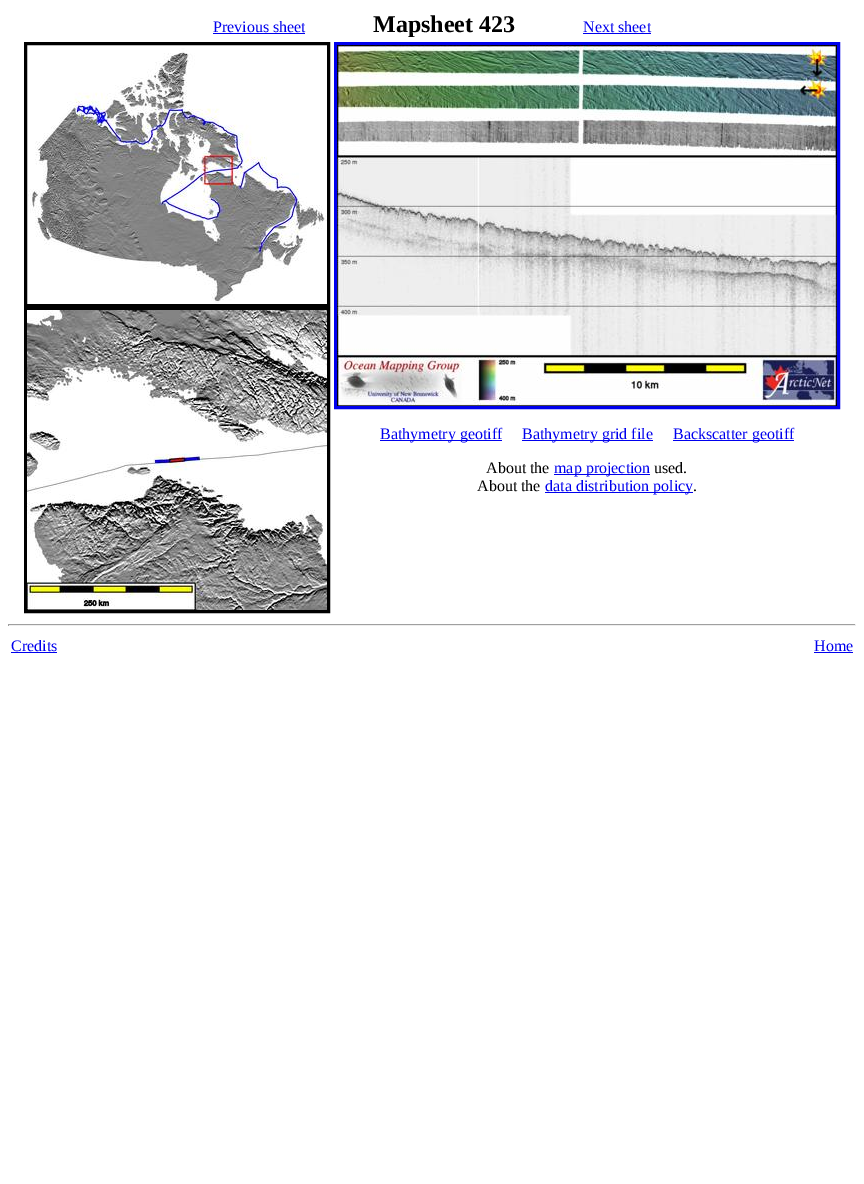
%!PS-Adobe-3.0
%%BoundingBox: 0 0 864 1184
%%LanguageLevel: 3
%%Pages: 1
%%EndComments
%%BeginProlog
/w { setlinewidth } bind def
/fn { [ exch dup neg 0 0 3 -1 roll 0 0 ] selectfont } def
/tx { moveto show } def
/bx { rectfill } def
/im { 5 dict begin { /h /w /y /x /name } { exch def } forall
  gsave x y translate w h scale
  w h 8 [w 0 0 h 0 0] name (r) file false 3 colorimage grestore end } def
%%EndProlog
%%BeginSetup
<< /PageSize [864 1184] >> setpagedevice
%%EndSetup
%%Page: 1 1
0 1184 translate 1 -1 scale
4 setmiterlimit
1 setgray
0 0 864 1184 bx
/LiberationSerif-Regular 16 fn
0 0 0.933 setrgbcolor
(Previous sheet) 213 32 tx
213 33 92 1 bx
/LiberationSerif-Bold 24 fn
0 setgray
(Mapsheet 423) 373 32 tx
/LiberationSerif-Regular 16 fn
0 0 0.933 setrgbcolor
(Next sheet) 583 32 tx
583 33 68 1 bx
0 setgray
3 w
25.5 43.5 303 262 rectstroke
(image0.raw) 28 48 299 255 im
25.5 308.5 303 303 rectstroke
(image1.raw) 27 310 300 300 im
0 0 0.933 setrgbcolor
335.5 43.5 503 364 rectstroke
(image2.raw) 337 45 500 361 im
380 440 122 1 bx
(Bathymetry geotiff) 380 439 tx
522 440 131 1 bx
(Bathymetry grid file) 522 439 tx
673 440 121 1 bx
(Backscatter geotiff) 673 439 tx
0 setgray
(About the) 486 473 tx
0 0 0.933 setrgbcolor
554 474 96 1 bx
(map projection) 554 473 tx
0 setgray
(used.) 654 473 tx
(About the) 477 491 tx
0 0 0.933 setrgbcolor
545 492 148 1 bx
(data distribution policy) 545 491 tx
0 setgray
(.) 693 491 tx
0.624 setgray
8 624 848 1 bx
0.933 setgray
855 624 1 2 bx
8 625 848 1 bx
0.624 setgray
8 624 1 2 bx
0 0 0.933 setrgbcolor
(Credits) 11 651 tx
11 652 46 1 bx
(Home) 814 651 tx
814 652 39 1 bx
showpage
%%EOF
